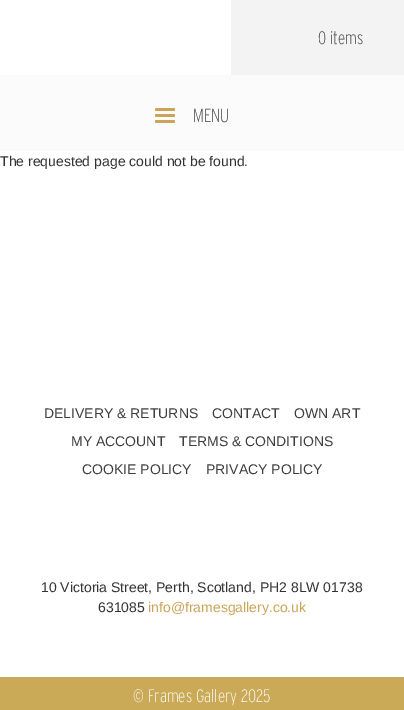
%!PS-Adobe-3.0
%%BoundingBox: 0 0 404 710
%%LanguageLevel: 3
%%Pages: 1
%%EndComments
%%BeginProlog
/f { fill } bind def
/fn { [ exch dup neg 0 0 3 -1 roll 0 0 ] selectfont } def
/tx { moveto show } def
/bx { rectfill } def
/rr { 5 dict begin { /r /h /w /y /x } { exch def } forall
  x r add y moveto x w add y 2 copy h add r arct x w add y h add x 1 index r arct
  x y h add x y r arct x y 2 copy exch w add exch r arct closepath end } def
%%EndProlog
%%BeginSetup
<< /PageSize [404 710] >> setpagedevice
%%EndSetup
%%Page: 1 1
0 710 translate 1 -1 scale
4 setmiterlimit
1 setgray
0 0 404 710 bx
0.953 setgray
231 0 173 75 bx
/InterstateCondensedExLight-ExtraLight 18 fn
0.243 setgray
(0 items) 318 44 tx
0.984 setgray
0 75 404 76 bx
0.796 0.647 0.341 setrgbcolor
155 108 20 3 1.5 rr f
/InterstateCondensedExLight-ExtraLight 19 fn
0.243 setgray
(MENU) 193 122 tx
0.796 0.647 0.341 setrgbcolor
155 114 20 3 1.5 rr f
155 120 20 3 1.5 rr f
/LiberationSans-Regular 14 fn
0.2 setgray
(The requested page could not be found.) 0 166 tx
0.243 setgray
(DELIVERY & RETURNS) 44 418 tx
(CONTACT) 212 418 tx
(OWN ART) 294 418 tx
(MY ACCOUNT) 71 446 tx
(TERMS & CONDITIONS) 179 446 tx
(COOKIE POLICY) 82 474 tx
(PRIVACY POLICY) 206 474 tx
0.2 setgray
(10 Victoria Street, Perth, Scotland, PH2 8LW 01738) 41 592 tx
(631085) 98 612 tx
0.796 0.647 0.341 setrgbcolor
(info@framesgallery.co.uk) 148 612 tx
0.792 0.667 0.337 setrgbcolor
0 677 404 33 bx
/InterstateCondensedExLight-ExtraLight 18 fn
1 setgray
(© Frames Gallery 2025) 133 702 tx
showpage
%%EOF
